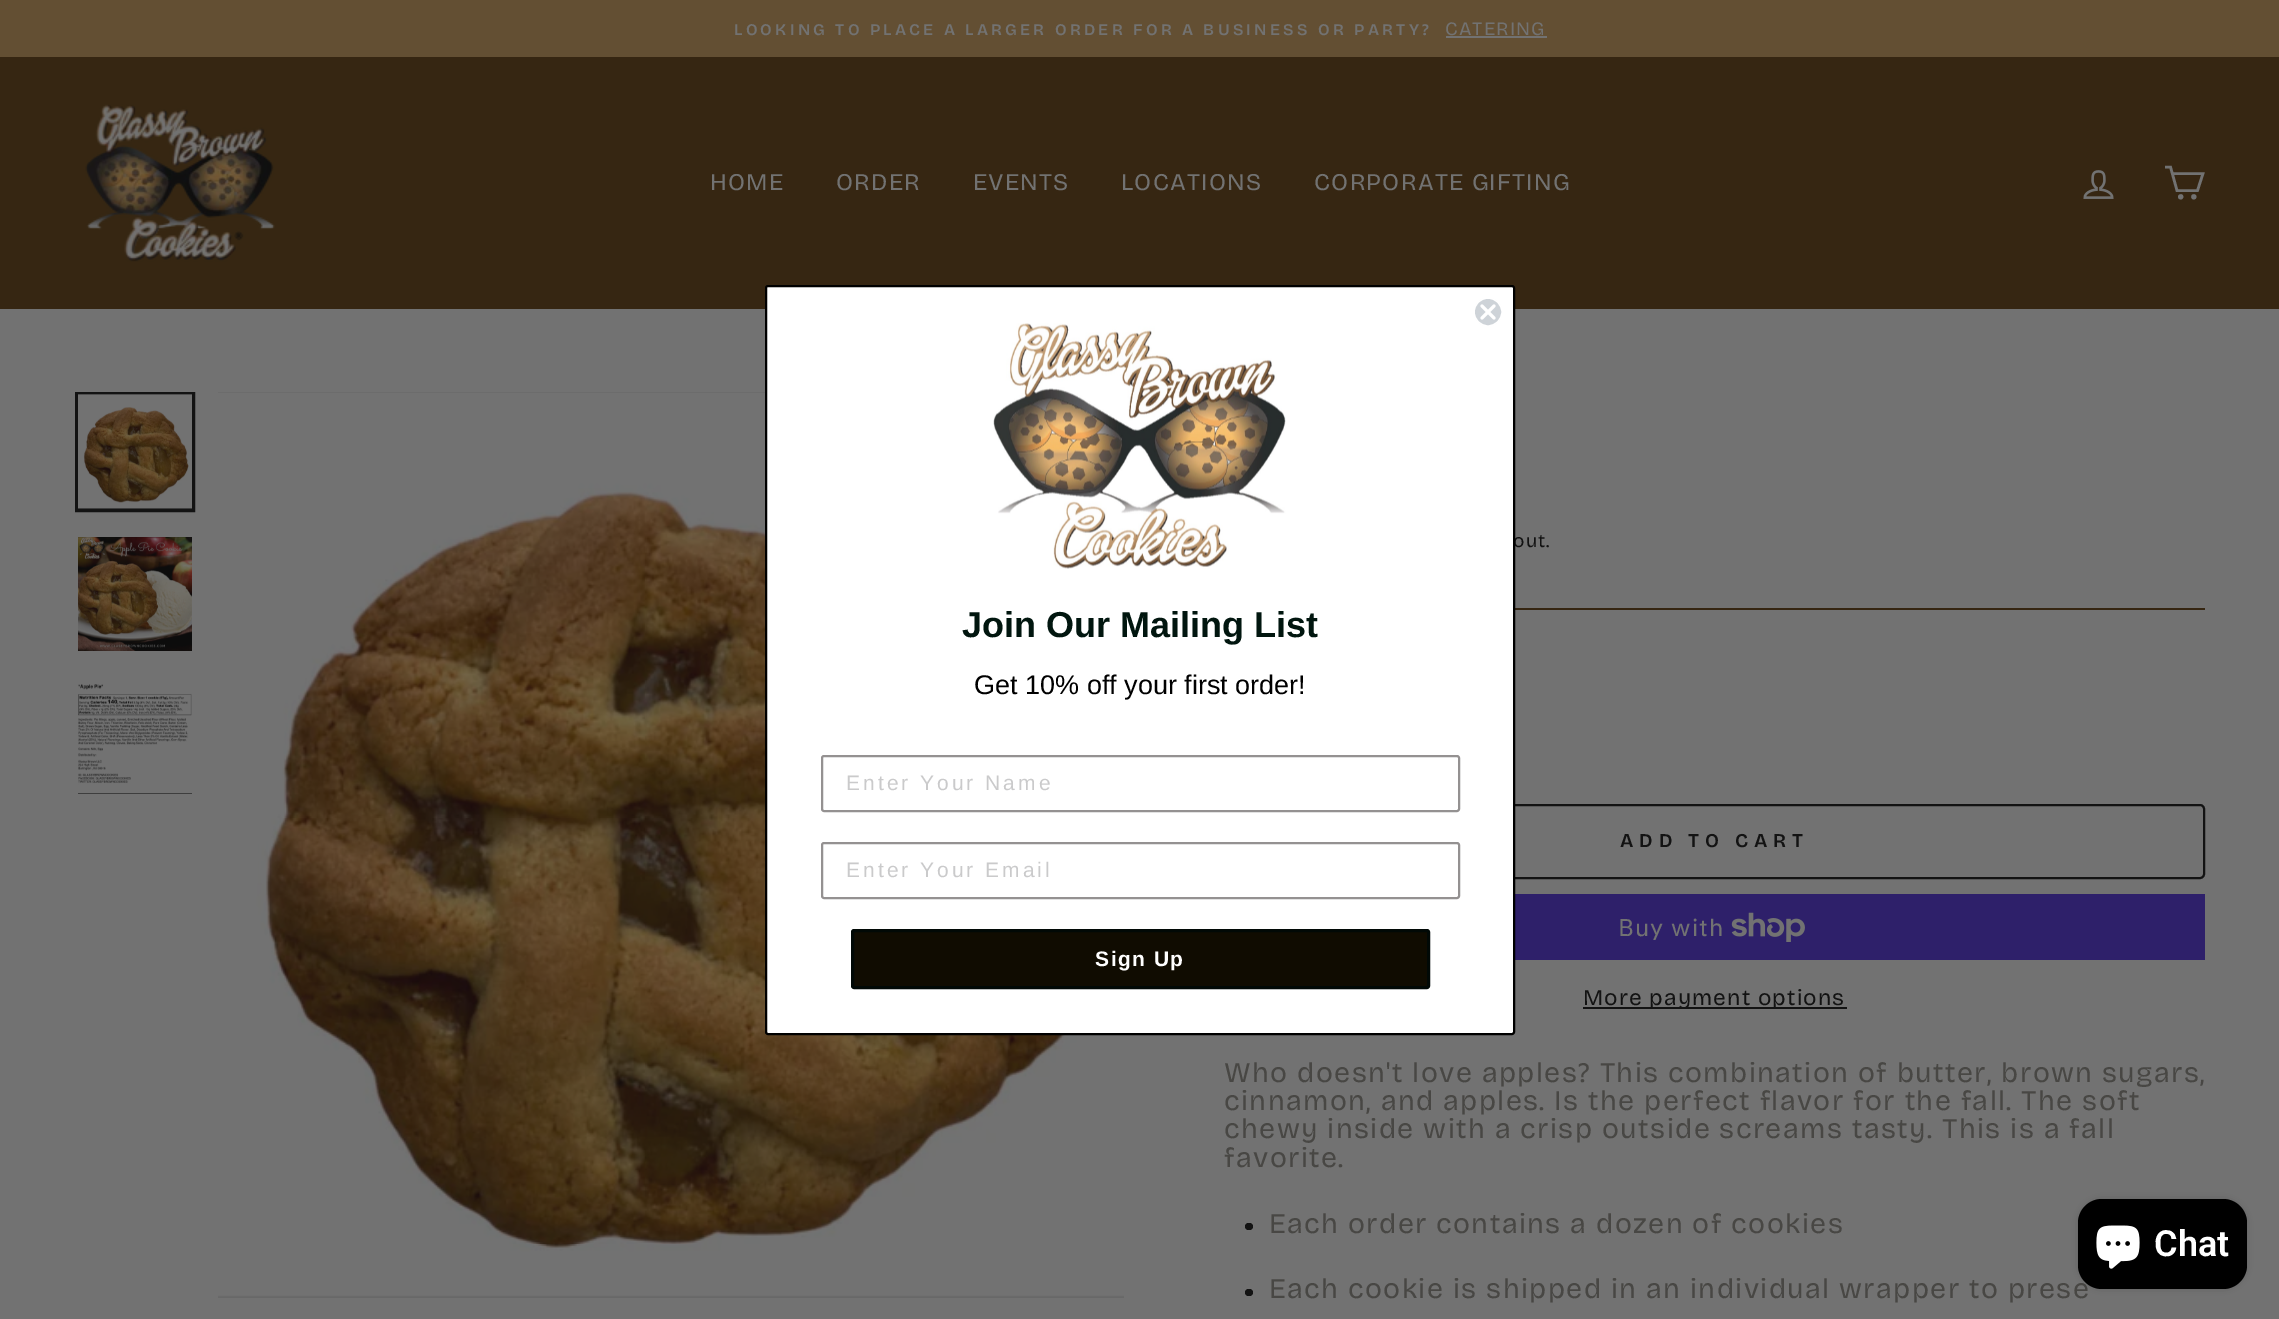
%!PS-Adobe-3.0
%%BoundingBox: 0 0 2279 1319
%%LanguageLevel: 3
%%Pages: 1
%%EndComments
%%BeginProlog
/m { moveto } bind def
/l { lineto } bind def
/h { closepath } bind def
/f { fill } bind def
/S { stroke } bind def
/q { gsave } bind def
/Q { grestore } bind def
/w { setlinewidth } bind def
/fn { [ exch dup neg 0 0 3 -1 roll 0 0 ] selectfont } def
/tx { moveto show } def
/bx { rectfill } def
/al { dup .setfillconstantalpha .setstrokeconstantalpha } def
/ci { newpath 0 360 arc closepath } def
/rr { 5 dict begin { /r /h /w /y /x } { exch def } forall
  x r add y moveto x w add y 2 copy h add r arct x w add y h add x 1 index r arct
  x y h add x y r arct x y 2 copy exch w add exch r arct closepath end } def
/sh { 12 dict begin { /a /b /q /h /w /y /x } { exch def } forall gsave /was 0 def
  9 -2 -9 { dup b mul 4 div /e exch def 1 sub .425 mul 2.718 exch exp 1 add a .99 .min exch div /now exch def
    1 1 now sub 1 was sub div sub al /was now def
    w h .min e 2 mul add 0 gt { x e sub y e sub w e 2 mul add h e 2 mul add
      q e add b .6 mul add w h .min 2 div e add .min 0 .max rr fill } if } for grestore end } def
/im { 5 dict begin { /h /w /y /x /name } { exch def } forall
  gsave x y translate w h scale
  w h 8 [w 0 0 h 0 0] name (r) file false 3 colorimage grestore end } def
%%EndProlog
%%BeginSetup
<< /PageSize [2279 1319] /PageUsesTransparency true >> setpagedevice
%%EndSetup
%%Page: 1 1
0 .pushpdf14devicefilter
0 1319 translate 1 -1 scale
4 setmiterlimit
0.447 setgray
0 0 2279 1319 bx
0.388 0.31 0.2 setrgbcolor
0 0 2279 57 bx
/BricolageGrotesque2-SemiBold 16.25 fn
0.447 setgray
734 35 m 3.25 0 (LOOKING TO PLACE A LARGER ORDER FOR A BUSINESS OR PARTY?) ashow
/BricolageGrotesque-Regular 19 fn
1445 35 m 1.1 0 (CATERING) ashow
1446 36 101 2 bx
0.212 0.149 0.071 setrgbcolor
0 57 2279 252 bx
(image0.raw) 85 104 190 158 im
/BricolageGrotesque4-Regular 24 fn
0.447 setgray
710 190 m 1.25 0 (HOME) ashow
836 190 m 1.25 0 (ORDER) ashow
973 190 m 1.25 0 (EVENTS) ashow
1121 190 m 1.25 0 (LOCATIONS) ashow
1314 190 m 1.25 0 (CORPORATE GIFTING) ashow
(image1.raw) 2083 170 31 29 im
2.6 w
2172 173.5 m 2203 173.5 l 2197.5 190.5 l 2177 190.5 l 2170.5 167 l 2165 167 l S
2180.7 196.8 1.3 ci S
2193.8 196.8 1.3 ci S
0.075 setgray
3 w
76.5 393.5 117 117 rectstroke
0.047 setgray
78 508 114 1 bx
(image2.raw) 78 394 114 115 im
(image3.raw) 78 537 114 114 im
78 793 114 1 bx
(image4.raw) 78 680 114 114 im
(image5.raw) 218 392 906 906 im
/BricolageGrotesque-Regular 19 fn
0.075 setgray
1513 547 m 1.1 0 (out.) ashow
0.212 0.149 0.071 setrgbcolor
1515 608 690 2 bx
0.075 setgray
2 w
1225 805 979 73 4 rr S
/BricolageGrotesque-SemiBold 19.5 fn
1620 847 m 5.8 0 (ADD TO CART) ashow
0.18 0.125 0.416 setrgbcolor
1515 894 690 66 bx
/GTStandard-Regular 24 fn
0.447 setgray
1618 936 m 1.1 0 (Buy with) ashow
(image6.raw) 1731 912 74 30 im
0.075 setgray
1583 1007 264 2 bx
/BricolageGrotesque2-Regular 22.5 fn
1583 1005 m 1.1 0 (More payment options) ashow
/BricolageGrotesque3-Regular 28.4 fn
0.282 0.278 0.267 setrgbcolor
1224 1082 m 1.42 0 (Who doesn't love apples? This combination of butter, brown sugars,) ashow
1224 1110 m 1.42 0 (cinnamon, and apples. Is the perfect flavor for the fall. The soft) ashow
1224 1138 m 1.42 0 (chewy inside with a crisp outside screams tasty. This is a fall) ashow
1224 1167 m 1.42 0 (favorite.) ashow
0.075 setgray
1245 1223 8 7 3.5 rr f
0.282 0.278 0.267 setrgbcolor
1269 1233 m 1.42 0 (Each order contains a dozen of cookies) ashow
0.075 setgray
1245 1289 8 7 3.5 rr f
0.282 0.278 0.267 setrgbcolor
1269 1298 m 1.42 0 (Each cookie is shipped in an individual wrapper to prese) ashow
1 setgray
766 286 748 748 2 rr q f Q
0 setgray
S
0.808 0.827 0.847 setrgbcolor
1488 312 14 ci q f Q
1 setgray
1.5 w
S
3 w
1 setlinecap
1 setlinejoin
1482 306 m 1494 318 l 1482 318 m 1494 306 l h S
(image7.raw) 993 323 293 246 im
/LiberationSans-Bold 36 fn
0.004 0.086 0.059 setrgbcolor
(Join Our Mailing List) 962 637 tx
/LiberationSans-Regular 27 fn
0 setgray
(Get 10% off your first order!) 974 694 tx
0.58 0.569 0.569 setrgbcolor
2 w
0 setlinecap
0 setlinejoin
822 756 637 55 2 rr S
/LiberationSans-Regular 21 fn
0.792 0.792 0.796 setrgbcolor
846 790 m 3 0 (Enter Your Name) ashow
0.58 0.569 0.569 setrgbcolor
822 843 637 55 2 rr S
0.792 0.792 0.796 setrgbcolor
846 877 m 3 0 (Enter Your Email) ashow
0.063 0.047 0.004 setrgbcolor
852.5 930.5 576 57 1.5 rr q f Q
0.004 0.035 0.024 setrgbcolor
3 w
S
/LiberationSans-Bold 21 fn
1 setgray
1095 966 m 1.5 0 (Sign Up) ashow
0 setgray
2078 1199 169 90 24 4 0.15 sh
2078 1199 169 90 24 rr f
(image8.raw) 2096 1225 44 44 im
/Roboto-SemiBold 36 fn
1 setgray
(Chat) 2154 1256 tx
.poppdf14devicefilter showpage
%%EOF
